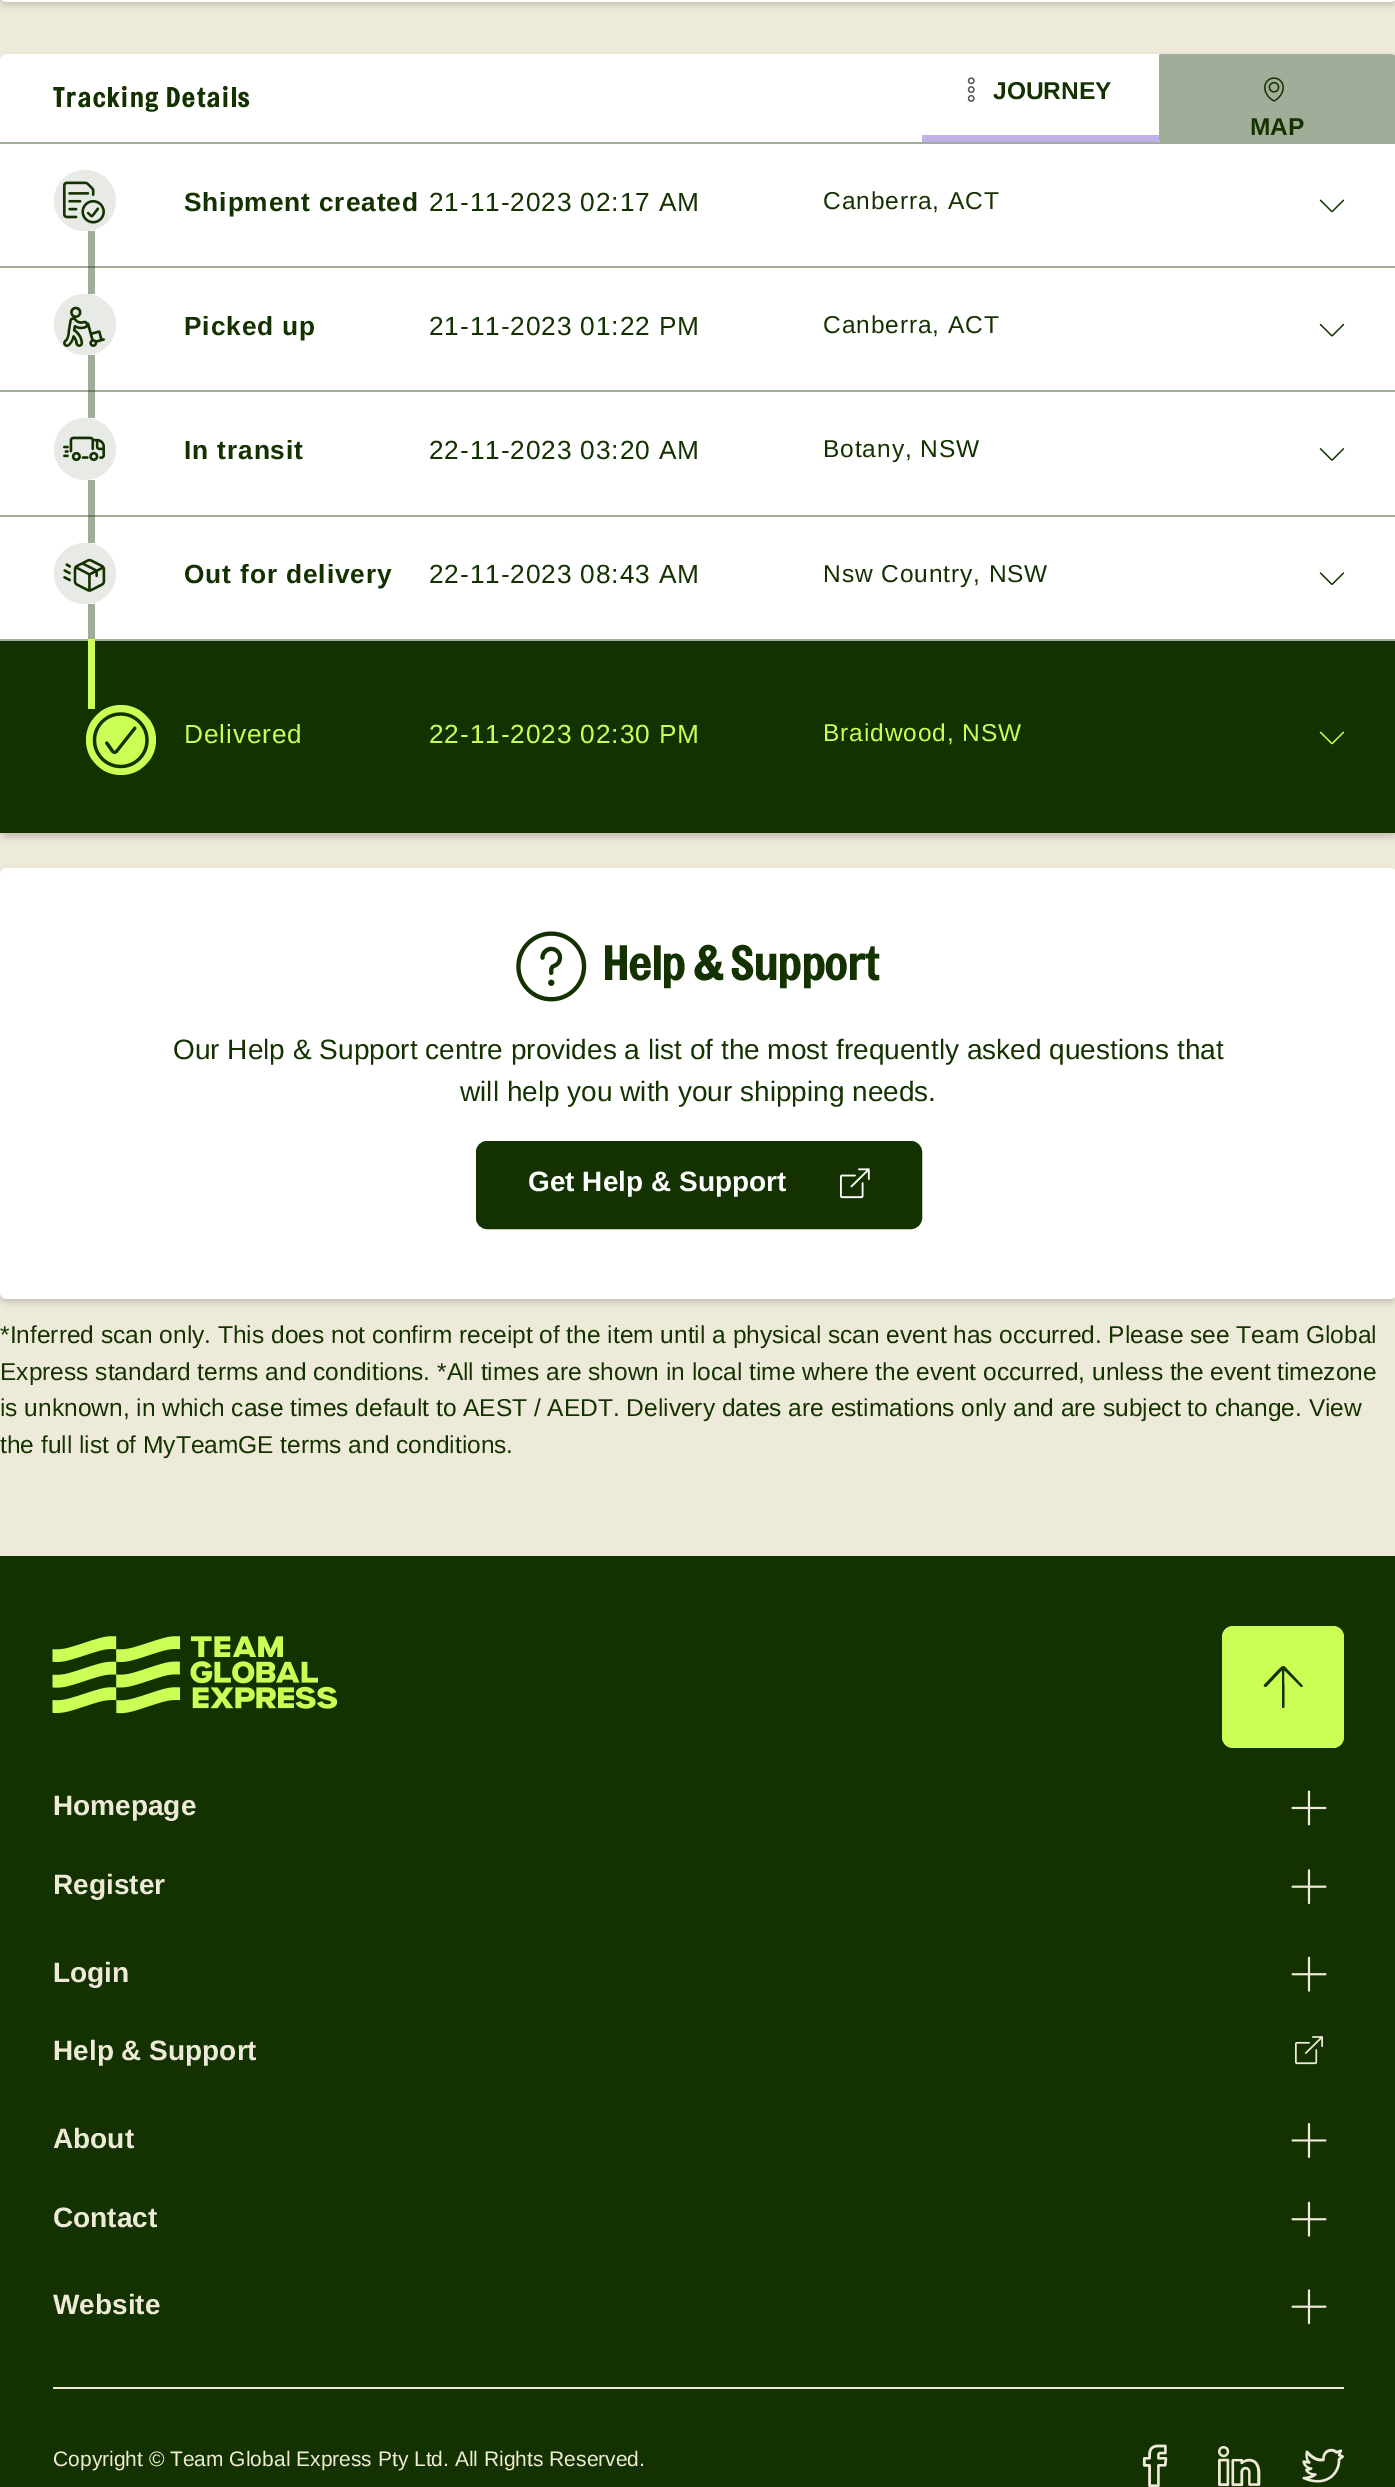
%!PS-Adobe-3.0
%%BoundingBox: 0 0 1395 2487
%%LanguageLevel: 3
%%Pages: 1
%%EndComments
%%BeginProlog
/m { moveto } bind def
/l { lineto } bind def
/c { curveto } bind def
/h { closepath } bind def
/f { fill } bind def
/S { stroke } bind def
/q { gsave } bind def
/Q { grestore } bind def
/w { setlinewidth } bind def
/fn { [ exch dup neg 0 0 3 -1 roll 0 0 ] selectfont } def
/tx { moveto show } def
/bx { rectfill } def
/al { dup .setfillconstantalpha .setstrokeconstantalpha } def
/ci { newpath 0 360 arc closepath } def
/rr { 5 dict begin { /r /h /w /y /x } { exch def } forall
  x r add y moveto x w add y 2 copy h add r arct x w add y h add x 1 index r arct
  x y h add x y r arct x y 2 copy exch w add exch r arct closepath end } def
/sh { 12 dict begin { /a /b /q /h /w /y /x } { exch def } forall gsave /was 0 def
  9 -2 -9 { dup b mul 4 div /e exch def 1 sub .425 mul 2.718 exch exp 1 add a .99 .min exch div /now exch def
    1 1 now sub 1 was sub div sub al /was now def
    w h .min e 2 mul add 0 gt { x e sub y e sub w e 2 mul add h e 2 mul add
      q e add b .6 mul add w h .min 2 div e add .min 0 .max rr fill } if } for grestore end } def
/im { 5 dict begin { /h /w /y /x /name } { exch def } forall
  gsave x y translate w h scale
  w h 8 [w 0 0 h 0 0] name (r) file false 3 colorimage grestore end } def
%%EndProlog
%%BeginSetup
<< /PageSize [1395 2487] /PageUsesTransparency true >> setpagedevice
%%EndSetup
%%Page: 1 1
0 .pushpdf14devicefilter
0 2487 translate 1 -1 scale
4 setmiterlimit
0.933 0.918 0.851 setrgbcolor
0 0 1395 2487 bx
0 setgray
0 -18 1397 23 7 3.5 0.18 sh
1 setgray
0 -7 m 1390 -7 l 1394 -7 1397 -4 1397 0 c 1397 -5 l 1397 -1 1394 2 1390 2 c 7 2 l 3 2 0 -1 0 -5 c h f
0 setgray
0 58 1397 779 7 3.5 0.18 sh
1 setgray
0 54 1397 779 7 rr f
0.631 0.678 0.6 setrgbcolor
88 604 7 42 bx
88 480 7 63 bx
88 355 7 63 bx
88 231 7 63 bx
0 142 1395 2 bx
/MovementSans-Regular 28 fn
0.078 0.196 0 setrgbcolor
53 107 m 1.75 0 (Tracking Details) ashow
0.753 0.694 0.922 setrgbcolor
922 135 237 7 bx
(image0.raw) 967 77 8 25 im
/LiberationSans-Bold 24.5 fn
0.078 0.196 0 setrgbcolor
(JOURNEY) 993 99 tx
0.4 al
1161 54 m 1390 54 l 1394 54 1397 57 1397 61 c 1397 140 l 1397 141 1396 142 1395 142 c 1161 142 l 1160 142 1159 141 1159 140 c 1159 56 l 1159 55 1160 54 1161 54 c h f
1 al
(image1.raw) 1264 77 20 25 im
(MAP) 1250 135 tx
0.631 0.678 0.6 setrgbcolor
0 266 1395 2 bx
0.412 0.486 0.361 setrgbcolor
88 266 7 2 bx
(image2.raw) 63 181 42 43 im
0.1 al
0.078 0.196 0 setrgbcolor
54 170 62 61 30.5 rr f
/LiberationSans-Bold 26.25 fn
1 al
184 211 m 0.9 0 (Shipment created) ashow
/LiberationSans-Regular 26.25 fn
429 211 m 0.9 0 (21-11-2023 02:17 AM) ashow
/LiberationSans-Regular 24.5 fn
823 209 m 0.9 0 (Canberra, ACT) ashow
(image3.raw) 1319 199 26 14 im
0.631 0.678 0.6 setrgbcolor
0 390 1395 2 bx
0.412 0.486 0.361 setrgbcolor
88 390 7 2 bx
(image4.raw) 63 306 42 41 im
0.1 al
0.078 0.196 0 setrgbcolor
54 294 62 61 30.5 rr f
/LiberationSans-Bold 26.25 fn
1 al
184 335 m 0.9 0 (Picked up) ashow
/LiberationSans-Regular 26.25 fn
429 335 m 0.9 0 (21-11-2023 01:22 PM) ashow
/LiberationSans-Regular 24.5 fn
823 333 m 0.9 0 (Canberra, ACT) ashow
(image5.raw) 1319 323 26 14 im
0.631 0.678 0.6 setrgbcolor
0 515 1395 2 bx
0.412 0.486 0.361 setrgbcolor
88 515 7 2 bx
(image6.raw) 63 436 42 25 im
0.1 al
0.078 0.196 0 setrgbcolor
85 449 31 ci f
/LiberationSans-Bold 26.25 fn
1 al
184 459 m 0.9 0 (In transit) ashow
/LiberationSans-Regular 26.25 fn
429 459 m 0.9 0 (22-11-2023 03:20 AM) ashow
/LiberationSans-Regular 24.5 fn
823 457 m 0.9 0 (Botany, NSW) ashow
(image7.raw) 1319 448 26 13 im
0.631 0.678 0.6 setrgbcolor
0 639 1395 2 bx
(image8.raw) 63 558 43 34 im
0.1 al
0.078 0.196 0 setrgbcolor
54 543 62 61 30.5 rr f
/LiberationSans-Bold 26.25 fn
1 al
184 583 m 0.9 0 (Out for delivery) ashow
/LiberationSans-Regular 26.25 fn
429 583 m 0.9 0 (22-11-2023 08:43 AM) ashow
/LiberationSans-Regular 24.5 fn
823 582 m 0.9 0 (Nsw Country, NSW) ashow
(image9.raw) 1319 572 26 13 im
0 641 1395 192 bx
0.796 1 0.333 setrgbcolor
88 639 7 70 bx
121 740 35 ci f
(image10.raw) 92 712 57 57 im
/LiberationSans-Regular 26.25 fn
184 743 m 0.9 0 (Delivered) ashow
429 743 m 0.9 0 (22-11-2023 02:30 PM) ashow
/LiberationSans-Regular 24.5 fn
823 741 m 0.9 0 (Braidwood, NSW) ashow
(image11.raw) 1319 731 26 14 im
0 setgray
0 872 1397 430 7 3.5 0.18 sh
1 setgray
0 868 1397 431 7 rr f
(image12.raw) 516 931 71 71 im
/MovementSans-Regular 49 fn
0.078 0.196 0 setrgbcolor
(Help & Support) 603 980 tx
/LiberationSans-Regular 28 fn
(Our Help & Support centre provides a list of the most frequently asked questions that) 173 1059 tx
(will help you with your shipping needs.) 460 1101 tx
477 1142 444 86 10 rr q f Q
2 w
S
/LiberationSans-Bold 28 fn
1 setgray
(Get Help & Support) 528 1191 tx
(image13.raw) 840 1168 30 31 im
/LiberationSans-Regular 24.5 fn
0.078 0.196 0 setrgbcolor
(*Inferred scan only. This does not confirm receipt of the item until a physical scan event has occurred. Please see Team Global) 0 1343 tx
(Express standard terms and conditions. *All times are shown in local time where the event occurred, unless the event timezone) 0 1380 tx
(is unknown, in which case times default to AEST / AEDT. Delivery dates are estimations only and are subject to change. View) 0 1416 tx
(the full list of MyTeamGE terms and conditions.) 0 1453 tx
0 1556 1395 931 bx
(image14.raw) 52 1636 286 78 im
0.796 1 0.333 setrgbcolor
1222 1626 122 122 11 rr f
0.078 0.196 0 setrgbcolor
1302 1685 m 1287 1669 l 1283 1665 1284 1665 1279 1669 c 1264 1685 l 1263 1686 1265 1687 1266 1687 c 1282 1670 l 1282 1707 l 1282 1708 1283 1708 1284 1708 c 1285 1707 1284 1675 1284 1670 c 1301 1687 l 1303 1687 1303 1686 1302 1685 c h f
/LiberationSans-Bold 28 fn
0.933 0.918 0.851 setrgbcolor
(Homepage) 53 1815 tx
(image15.raw) 1291 1790 36 36 im
(Register) 53 1894 tx
(image16.raw) 1291 1869 36 36 im
(Login) 53 1982 tx
(image17.raw) 1291 1956 36 36 im
(Help & Support) 53 2060 tx
(image18.raw) 1295 2036 28 29 im
(About) 53 2148 tx
(image19.raw) 1291 2123 36 35 im
(Contact) 53 2227 tx
(image17.raw) 1291 2201 36 36 im
(Website) 53 2314 tx
(image16.raw) 1291 2289 36 36 im
53 2387 1291 2 bx
/LiberationSans-Regular 21 fn
(Copyright © Team Global Express Pty Ltd. All Rights Reserved.) 53 2466 tx
(image20.raw) 1142 2444 26 43 im
(image21.raw) 1218 2446 43 41 im
(image22.raw) 1302 2448 42 35 im
.poppdf14devicefilter showpage
%%EOF
